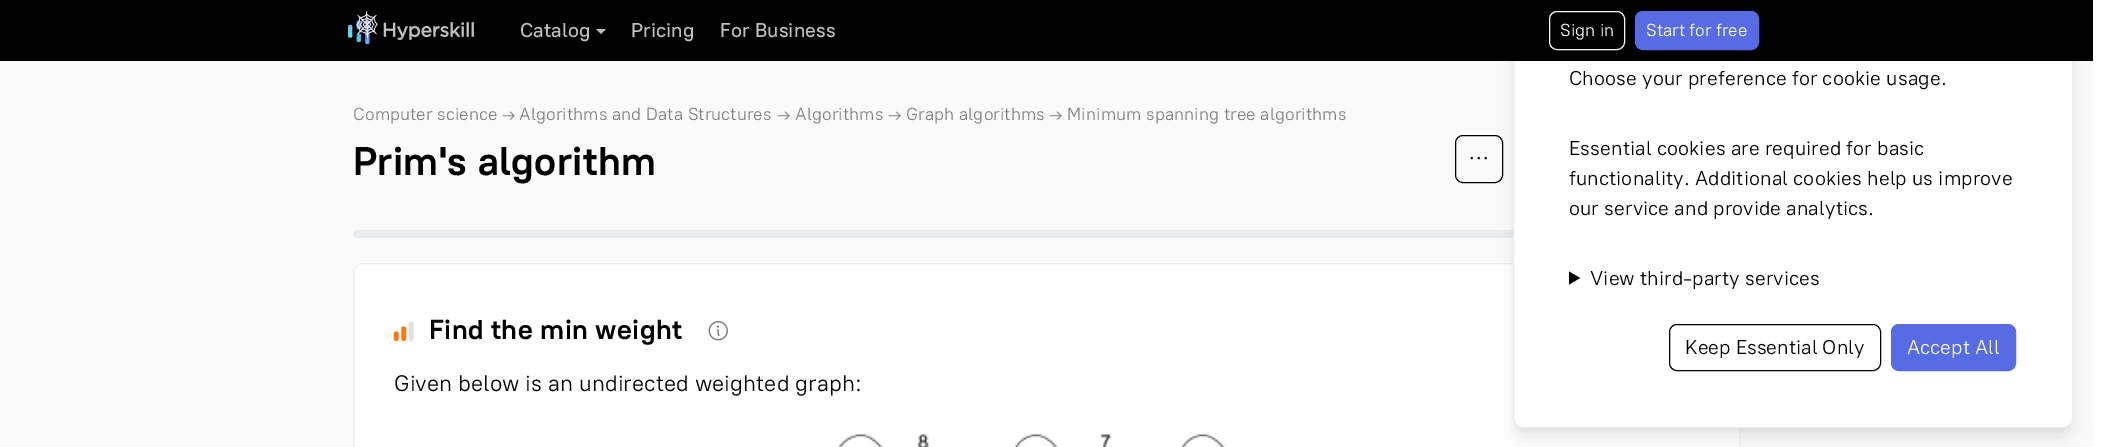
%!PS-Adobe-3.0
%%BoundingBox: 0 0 2111 447
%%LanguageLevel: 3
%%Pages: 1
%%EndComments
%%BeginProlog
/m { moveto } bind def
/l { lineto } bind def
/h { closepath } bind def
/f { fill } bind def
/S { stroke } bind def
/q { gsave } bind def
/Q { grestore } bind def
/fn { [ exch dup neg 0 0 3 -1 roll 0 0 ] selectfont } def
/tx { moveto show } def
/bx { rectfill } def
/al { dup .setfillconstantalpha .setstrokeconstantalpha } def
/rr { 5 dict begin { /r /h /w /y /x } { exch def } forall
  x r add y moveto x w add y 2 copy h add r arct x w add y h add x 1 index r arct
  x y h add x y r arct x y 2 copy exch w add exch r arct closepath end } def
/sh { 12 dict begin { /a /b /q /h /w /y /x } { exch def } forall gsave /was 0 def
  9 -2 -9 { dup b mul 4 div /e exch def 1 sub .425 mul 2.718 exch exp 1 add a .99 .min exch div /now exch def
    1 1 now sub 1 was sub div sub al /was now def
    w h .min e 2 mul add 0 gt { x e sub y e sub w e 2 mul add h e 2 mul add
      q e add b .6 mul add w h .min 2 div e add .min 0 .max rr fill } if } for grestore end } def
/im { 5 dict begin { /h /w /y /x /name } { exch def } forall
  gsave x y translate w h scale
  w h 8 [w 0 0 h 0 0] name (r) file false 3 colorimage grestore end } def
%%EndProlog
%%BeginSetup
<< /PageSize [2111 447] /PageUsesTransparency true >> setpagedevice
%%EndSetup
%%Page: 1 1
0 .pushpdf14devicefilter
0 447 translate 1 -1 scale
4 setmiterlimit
1 setgray
0 0 2111 447 bx
0.98 setgray
0 61 2093 386 bx
0.914 0.925 0.937 setrgbcolor
353 230 1387 8 4 rr f
1 setgray
353.5 263.5 1386 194 9.5 rr q f Q
0.929 setgray
S
0 setgray
1518 -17 550 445 5 4 0.1 sh
1455.5 135.5 47 47 7.5 rr S
(image3.raw) 1470 156 17 4 im
1516 -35 553 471 6 9.5 0.1 sh
1 setgray
1513.5 -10.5 559 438 9.5 rr q f Q
0.929 setgray
S
0 setgray
0 0 2093 61 bx
(image1.raw) 348 18 22 27 im
(image0.raw) 356 11 22 27 im
(image2.raw) 383 22 91 18 im
/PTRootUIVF-Medium 20 fn
0.749 setgray
520 37 m 0.1 0 (Catalog) ashow
596 29 m 606 29 l 601 34 l h f
631 37 m 0.1 0 (Pricing) ashow
720 37 m 0.1 0 (For Business) ashow
0.973 0.976 0.98 setrgbcolor
1549.5 11.5 75 38 7.5 rr S
/PTRootUIVF-Regular 17.5 fn
(Sign in) 1560 36 tx
0.337 0.42 0.894 setrgbcolor
1635.5 11.5 123 38 7.5 rr q f Q
S
1 setgray
(Start for free) 1646 36 tx
0.502 setgray
353 120 m 0.1 0 (Computer science) ashow
/PTRootUIVF-Regular 17 fn
502 120 m 0.1 0 (→) ashow
/PTRootUIVF-Regular 17.5 fn
519 120 m 0.1 0 (Algorithms and Data Structures) ashow
/PTRootUIVF-Regular 17 fn
777 120 m 0.1 0 (→) ashow
/PTRootUIVF-Regular 17.5 fn
795 120 m 0.1 0 (Algorithms) ashow
/PTRootUIVF-Regular 17 fn
888 120 m 0.1 0 (→) ashow
/PTRootUIVF-Regular 17.5 fn
906 120 m 0.1 0 (Graph algorithms) ashow
/PTRootUIVF-Regular 17 fn
1049 120 m 0.1 0 (→) ashow
/PTRootUIVF-Regular 17.5 fn
1067 120 m 0.1 0 (Minimum spanning tree algorithms) ashow
/PTRootUIVF-Bold 40 fn
0 setgray
353 175 m 0.4 0 (Prim's algorithm) ashow
(image4.raw) 393 321 21 21 im
/PTRootUIVF-Bold 27.5 fn
429 339 m 0.4 0 (Find the min weight) ashow
(image5.raw) 708 321 20 20 im
/PTRootUIVF-Regular 22.5 fn
394 391 m 0.1 0 (Given below is an undirected weighted graph:) ashow
(image6.raw) 838 434 387 13 im
/PTRootUIVF-Regular 20 fn
1569 85 m 0.1 0 (Choose your preference for cookie usage.) ashow
1569 155 m 0.1 0 (Essential cookies are required for basic) ashow
1569 185 m 0.1 0 (functionality. Additional cookies help us improve) ashow
1569 215 m 0.1 0 (our service and provide analytics.) ashow
1569 271.5 m 1580 278 l 1569 284.5 l h f
1590 285 m 0.1 0 (View third-party services) ashow
1669.5 324.5 211 46 7.5 rr S
(Keep Essential Only) 1685 354 tx
0.337 0.42 0.894 setrgbcolor
1891.5 324.5 124 46 7.5 rr q f Q
S
1 setgray
(Accept All) 1907 354 tx
.poppdf14devicefilter showpage
%%EOF
